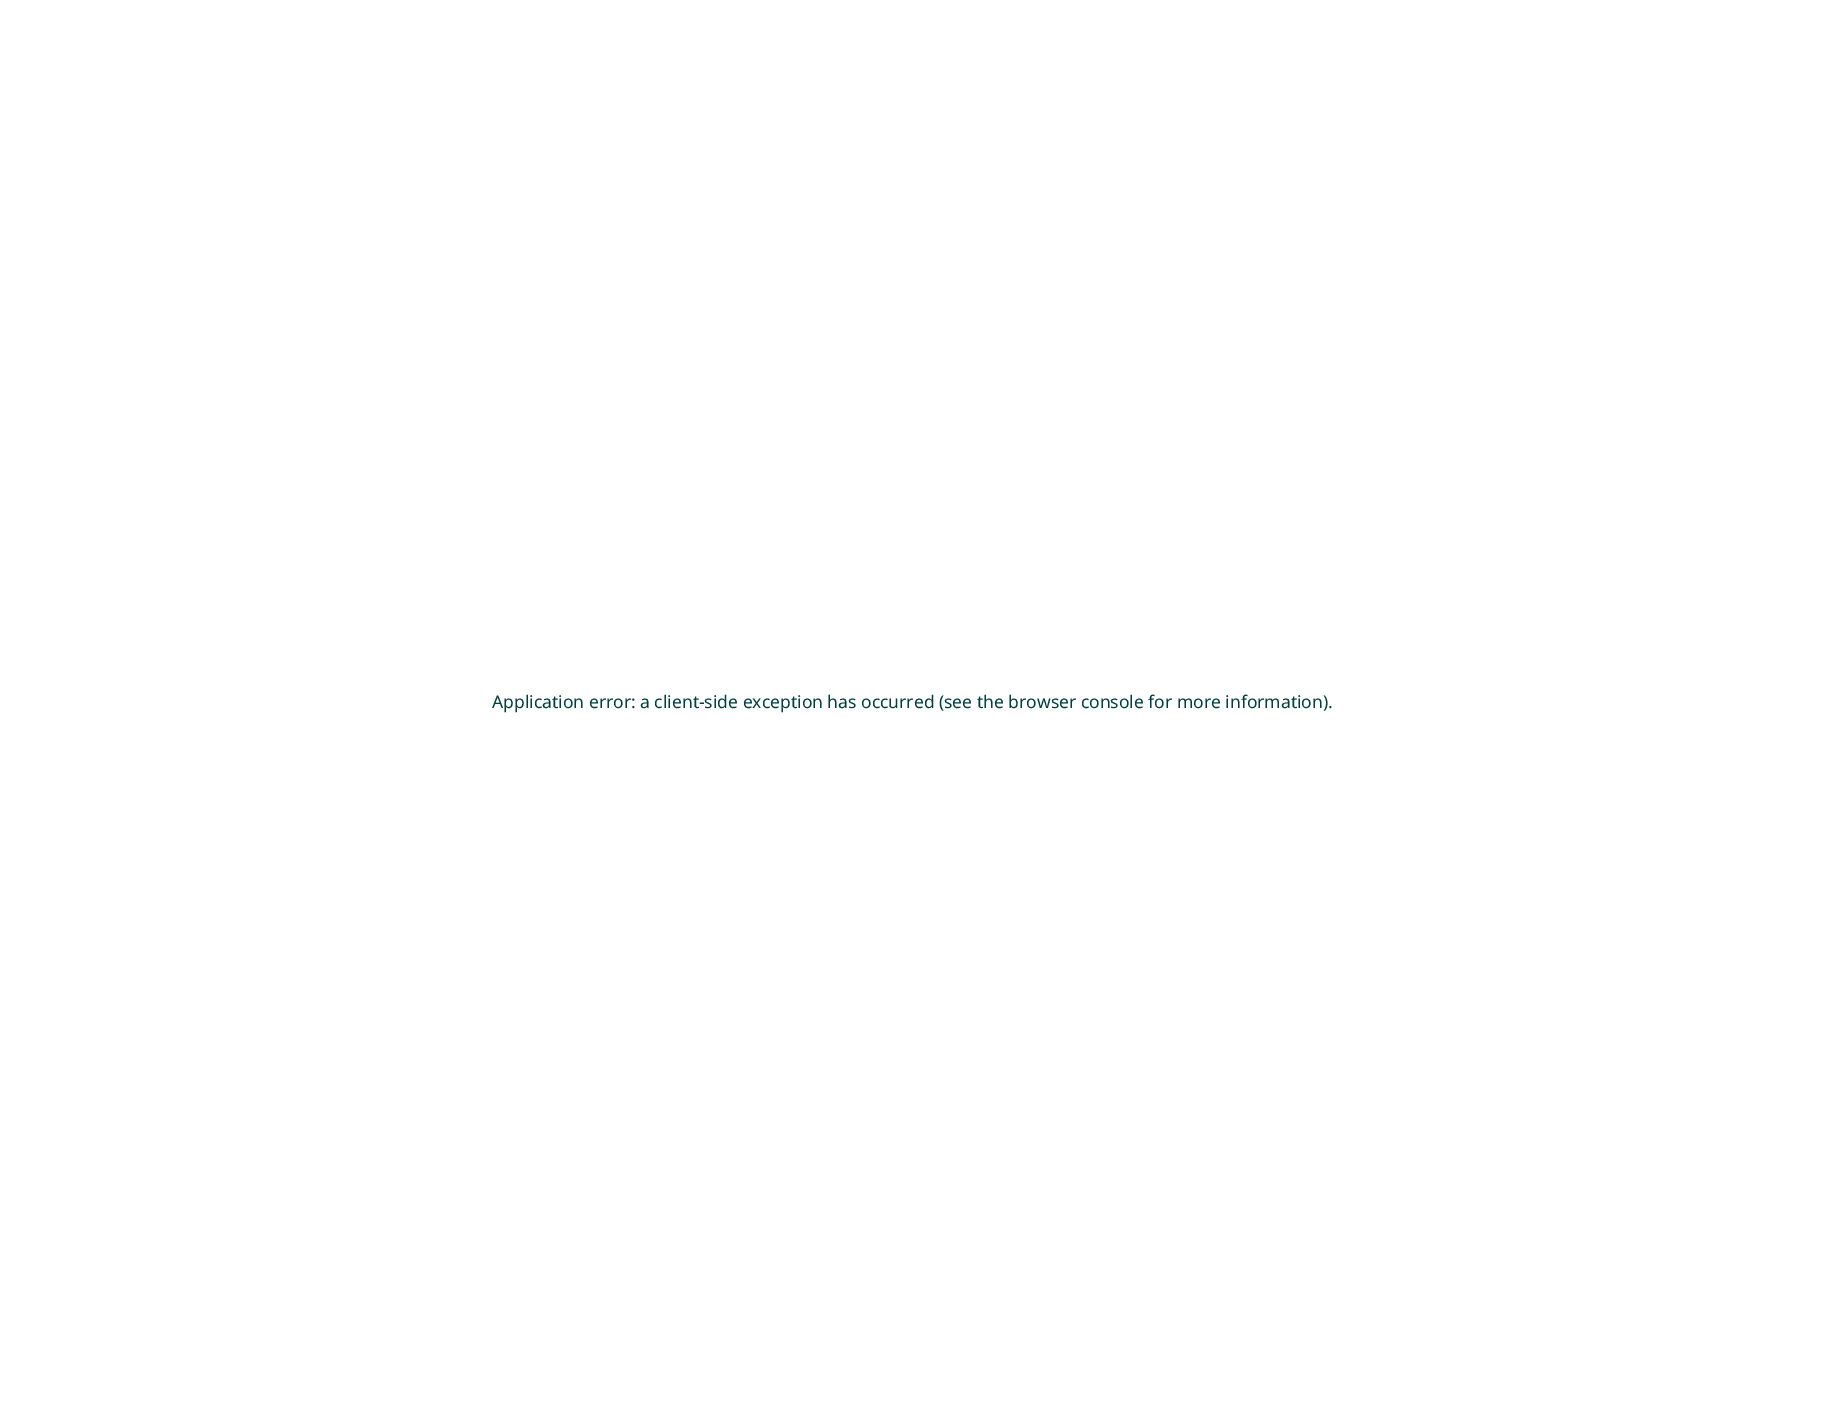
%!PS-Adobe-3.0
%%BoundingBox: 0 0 1824 1402
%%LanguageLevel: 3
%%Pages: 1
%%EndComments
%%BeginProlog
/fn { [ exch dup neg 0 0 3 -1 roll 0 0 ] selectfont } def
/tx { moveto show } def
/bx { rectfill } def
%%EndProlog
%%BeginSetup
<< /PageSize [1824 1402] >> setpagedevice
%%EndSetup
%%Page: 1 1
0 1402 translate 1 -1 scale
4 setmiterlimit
1 setgray
0 0 1824 1402 bx
/NotoSans-Regular 17.5 fn
0 0.251 0.263 setrgbcolor
(Application error: a client-side exception has occurred \(see the browser console for more information\).) 492 708 tx
showpage
%%EOF
